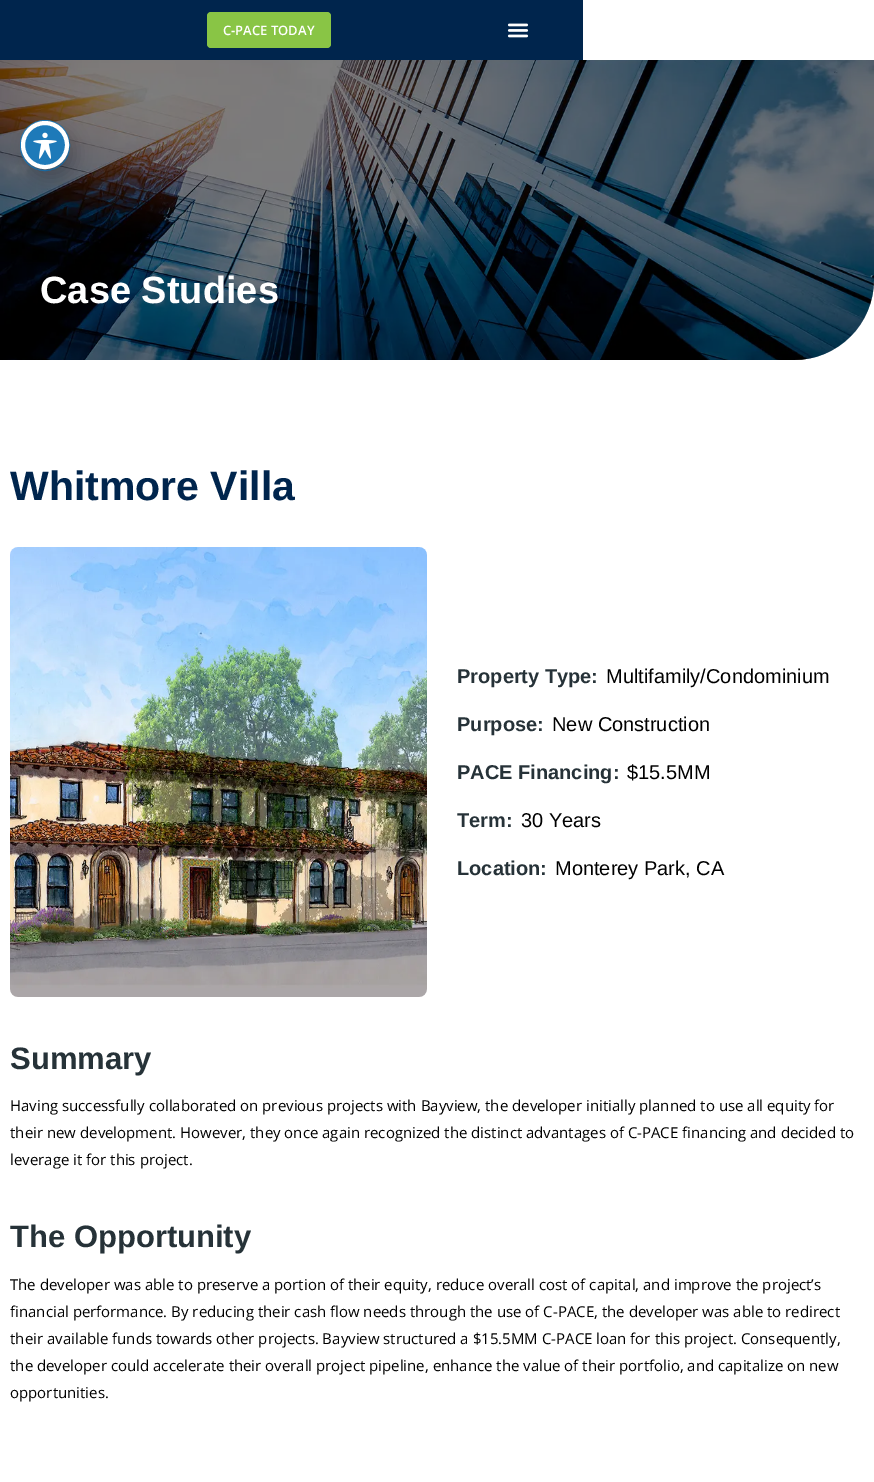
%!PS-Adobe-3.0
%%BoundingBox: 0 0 874 1482
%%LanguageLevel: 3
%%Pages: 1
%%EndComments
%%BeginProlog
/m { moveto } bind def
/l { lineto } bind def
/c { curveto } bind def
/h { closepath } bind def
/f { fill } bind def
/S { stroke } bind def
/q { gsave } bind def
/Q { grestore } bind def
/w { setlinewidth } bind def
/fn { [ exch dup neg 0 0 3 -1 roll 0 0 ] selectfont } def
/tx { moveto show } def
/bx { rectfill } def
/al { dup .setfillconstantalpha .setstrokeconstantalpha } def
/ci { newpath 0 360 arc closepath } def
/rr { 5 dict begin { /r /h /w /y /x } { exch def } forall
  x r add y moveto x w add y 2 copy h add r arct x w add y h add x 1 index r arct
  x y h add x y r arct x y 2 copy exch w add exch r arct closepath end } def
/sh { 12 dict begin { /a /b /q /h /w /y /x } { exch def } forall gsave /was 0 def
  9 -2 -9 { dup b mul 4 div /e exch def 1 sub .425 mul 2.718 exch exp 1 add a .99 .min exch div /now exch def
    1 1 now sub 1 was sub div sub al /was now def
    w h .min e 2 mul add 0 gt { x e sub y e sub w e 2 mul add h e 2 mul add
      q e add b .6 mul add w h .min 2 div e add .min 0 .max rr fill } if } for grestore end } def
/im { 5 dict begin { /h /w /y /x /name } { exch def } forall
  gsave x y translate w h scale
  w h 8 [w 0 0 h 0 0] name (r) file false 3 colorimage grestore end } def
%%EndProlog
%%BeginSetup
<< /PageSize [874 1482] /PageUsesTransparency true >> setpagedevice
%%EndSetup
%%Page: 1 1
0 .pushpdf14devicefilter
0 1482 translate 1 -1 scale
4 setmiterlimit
1 setgray
0 0 874 1482 bx
0 0.145 0.302 setrgbcolor
0 0 583 60 bx
0.537 0.773 0.271 setrgbcolor
207 12 124 36 4 rr f
/OpenSans-SemiBold 13 fn
1 setgray
(C-PACE TODAY) 223 35 tx
(image0.raw) 507 23 22 15 im
(image1.raw) 0 60 874 300 im
0.5 al
0 setgray
0 60 m 874 60 l 874 280 l 874 324 838 360 794 360 c 0 360 l h f
/LiberationSans-Bold 38 fn
1 al
1 setgray
(Case Studies) 40 303 tx
/LiberationSans-Bold 41 fn
0 0.145 0.302 setrgbcolor
(Whitmore Villa) 10 500 tx
(image2.raw) 10 547 417 450 im
/LiberationSans-Bold 20 fn
0.149 0.196 0.22 setrgbcolor
(Property Type:) 457 683 tx
/LiberationSans-Regular 20 fn
0 setgray
(Multifamily/Condominium) 606 683 tx
/LiberationSans-Bold 20 fn
0.149 0.196 0.22 setrgbcolor
(Purpose:) 457 731 tx
/LiberationSans-Regular 20 fn
0 setgray
(New Construction) 552 731 tx
/LiberationSans-Bold 20 fn
0.149 0.196 0.22 setrgbcolor
(PACE Financing:) 457 779 tx
/LiberationSans-Regular 20 fn
0 setgray
($15.5MM) 627 779 tx
/LiberationSans-Bold 20 fn
0.149 0.196 0.22 setrgbcolor
(Term:) 457 827 tx
/LiberationSans-Regular 20 fn
0 setgray
(30 Years) 521 827 tx
/LiberationSans-Bold 20 fn
0.149 0.196 0.22 setrgbcolor
(Location:) 457 875 tx
/LiberationSans-Regular 20 fn
0 setgray
(Monterey Park, CA) 555 875 tx
/LiberationSans-Bold 31 fn
0.149 0.196 0.22 setrgbcolor
(Summary) 10 1069 tx
/OpenSans-Regular 15 fn
0 setgray
(Having successfully collaborated on previous projects with Bayview, the developer initially planned to use all equity for) 10 1111 tx
(their new development. However, they once again recognized the distinct advantages of C-PACE financing and decided to) 10 1138 tx
(leverage it for this project.) 10 1165 tx
/LiberationSans-Bold 31 fn
0.149 0.196 0.22 setrgbcolor
(The Opportunity) 10 1247 tx
/OpenSans-Regular 15 fn
0 setgray
(The developer was able to preserve a portion of their equity, reduce overall cost of capital, and improve the project’s) 10 1290 tx
(financial performance. By reducing their cash flow needs through the use of C-PACE, the developer was able to redirect) 10 1317 tx
(their available funds towards other projects. Bayview structured a $15.5MM C-PACE loan for this project. Consequently,) 10 1344 tx
(the developer could accelerate their overall project pipeline, enhance the value of their portfolio, and capitalize on new) 10 1371 tx
(opportunities.) 10 1398 tx
0.118 0.478 0.725 setrgbcolor
20.5 120.5 49 50 24.5 rr S
0 setgray
27 129 48 48 24 8 0.2 sh
0.118 0.478 0.725 setrgbcolor
45 145 22 ci q f Q
1 setgray
4 w
S
(image3.raw) 33 132 24 27 im
.poppdf14devicefilter showpage
%%EOF
